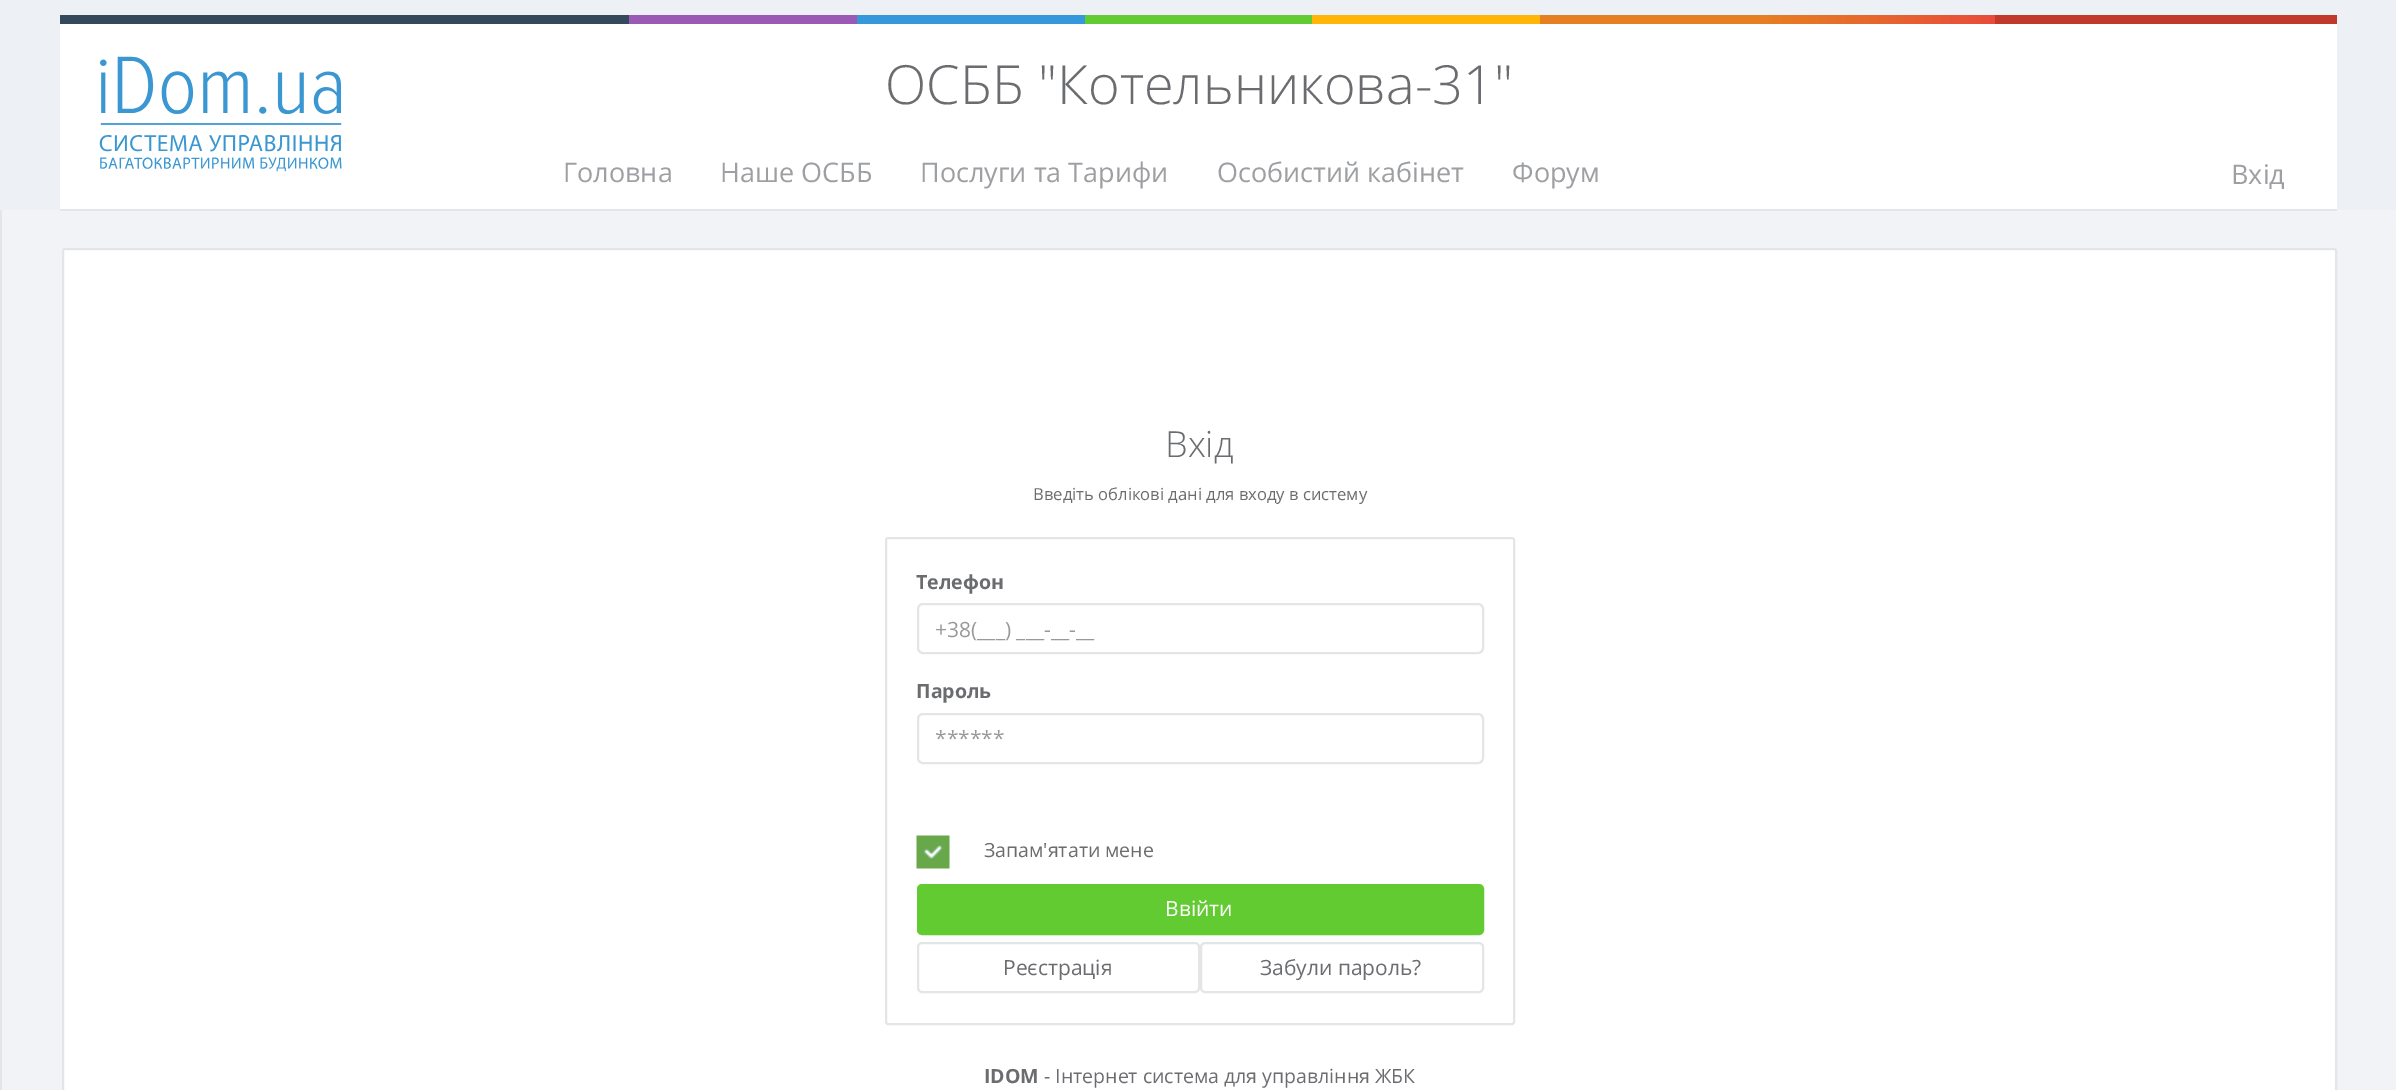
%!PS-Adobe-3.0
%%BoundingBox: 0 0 2396 1090
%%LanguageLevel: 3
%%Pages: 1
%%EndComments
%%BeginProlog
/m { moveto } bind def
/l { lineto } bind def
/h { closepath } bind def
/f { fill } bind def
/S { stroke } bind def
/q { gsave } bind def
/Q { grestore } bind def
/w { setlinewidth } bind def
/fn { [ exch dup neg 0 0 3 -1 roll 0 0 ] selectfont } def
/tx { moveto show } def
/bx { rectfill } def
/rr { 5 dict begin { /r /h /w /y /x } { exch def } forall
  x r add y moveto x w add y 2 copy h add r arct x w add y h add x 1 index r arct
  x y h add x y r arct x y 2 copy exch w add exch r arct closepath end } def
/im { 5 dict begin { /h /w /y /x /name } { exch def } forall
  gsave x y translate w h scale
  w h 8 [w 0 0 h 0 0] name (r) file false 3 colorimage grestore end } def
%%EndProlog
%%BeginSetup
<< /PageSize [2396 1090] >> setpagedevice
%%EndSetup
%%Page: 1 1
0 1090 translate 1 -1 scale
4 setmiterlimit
0.929 0.941 0.961 setrgbcolor
0 0 2396 1090 bx
1 setgray
60 24 2277 185 bx
0.945 0.953 0.965 setrgbcolor
2 210 2394 880 bx
0.894 0.898 0.906 setrgbcolor
60 209 2277 2 bx
q 60 15 m 2337 15 l 2337 24 l 60 24 l h clip newpath
<< /ShadingType 2 /ColorSpace /DeviceRGB /Coords [60 20 2337 19] /Extend [true true] /Function << /FunctionType 3 /Domain [0 1] /Functions [<< /FunctionType 2 /Domain [0 1] /C0 [0.204 0.286 0.369] /C1 [0.204 0.286 0.369] /N 1 >> << /FunctionType 2 /Domain [0 1] /C0 [0.608 0.349 0.714] /C1 [0.608 0.349 0.714] /N 1 >> << /FunctionType 2 /Domain [0 1] /C0 [0.204 0.596 0.859] /C1 [0.204 0.596 0.859] /N 1 >> << /FunctionType 2 /Domain [0 1] /C0 [0.384 0.796 0.192] /C1 [0.384 0.796 0.192] /N 1 >> << /FunctionType 2 /Domain [0 1] /C0 [1 0.714 0.024] /C1 [1 0.714 0.024] /N 1 >> << /FunctionType 2 /Domain [0 1] /C0 [0.902 0.494 0.133] /C1 [0.902 0.494 0.133] /N 1 >> << /FunctionType 2 /Domain [0 1] /C0 [0.902 0.494 0.133] /C1 [0.906 0.298 0.235] /N 1 >> << /FunctionType 2 /Domain [0 1] /C0 [0.753 0.224 0.169] /C1 [0.753 0.224 0.169] /N 1 >>] /Bounds [0.25 0.35 0.45 0.55 0.65 0.75 0.85] /Encode [0 1 0 1 0 1 0 1 0 1 0 1 0 1 0 1] >> >> shfill Q
(image0.raw) 99 56 243 116 im
/OpenSans-Light 54 fn
0.416 0.424 0.435 setrgbcolor
(ОСББ "Котельникова-31") 885 104 tx
/OpenSans-Regular 27 fn
0.616 0.624 0.635 setrgbcolor
(Головна) 563 182 tx
(Наше ОСББ) 720 182 tx
(Послуги та Тарифи) 920 182 tx
(Особистий кабінет) 1217 182 tx
(Форум) 1512 182 tx
(Вхід) 2231 184 tx
0.894 0.898 0.906 setrgbcolor
0 210 2 880 bx
1 setgray
63 249 2273 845 2 rr q f Q
0.894 0.898 0.906 setrgbcolor
2 w
S
/OpenSans-Light 36 fn
0.416 0.424 0.435 setrgbcolor
(Вхід) 1165 457 tx
/OpenSans-Regular 16.6 fn
(Введіть облікові дані для входу в систему) 1033 500 tx
0.894 0.898 0.906 setrgbcolor
886 538 628 486 2 rr S
/OpenSans-Bold 19.5 fn
0.416 0.424 0.435 setrgbcolor
(Телефон) 916 589 tx
0.894 0.898 0.906 setrgbcolor
918 604 565 49 5 rr S
/OpenSans-Regular 21 fn
0.6 setgray
(+38\(___\) ___-__-__) 935 637 tx
/OpenSans-Bold 19.5 fn
0.416 0.424 0.435 setrgbcolor
(Пароль) 916 698 tx
0.894 0.898 0.906 setrgbcolor
918 714 565 49 5 rr S
/OpenSans-Regular 21 fn
0.6 setgray
(******) 935 746 tx
(image1.raw) 916 835 34 34 im
/OpenSans-Regular 19.5 fn
0.416 0.424 0.435 setrgbcolor
(Запам'ятати мене) 984 857 tx
0.384 0.796 0.192 setrgbcolor
918 885 565 49 4 rr q f Q
S
/OpenSans-Regular 21 fn
1 setgray
(Ввійти) 1165 916 tx
0.894 0.898 0.906 setrgbcolor
918 943 281 49 4 rr S
0.416 0.424 0.435 setrgbcolor
(Реєстрація) 1003 975 tx
0.894 0.898 0.906 setrgbcolor
1201 943 282 49 4 rr S
0.416 0.424 0.435 setrgbcolor
(Забули пароль?) 1260 975 tx
/OpenSans-Bold 19.5 fn
(IDOM) 984 1083 tx
/OpenSans-Regular 19.5 fn
(- Інтернет система для управління ЖБК) 1044 1083 tx
showpage
%%EOF
